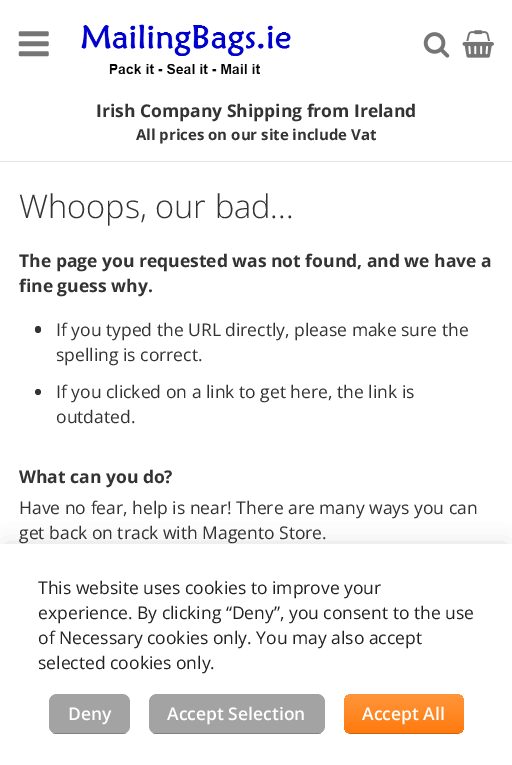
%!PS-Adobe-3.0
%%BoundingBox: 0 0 512 765
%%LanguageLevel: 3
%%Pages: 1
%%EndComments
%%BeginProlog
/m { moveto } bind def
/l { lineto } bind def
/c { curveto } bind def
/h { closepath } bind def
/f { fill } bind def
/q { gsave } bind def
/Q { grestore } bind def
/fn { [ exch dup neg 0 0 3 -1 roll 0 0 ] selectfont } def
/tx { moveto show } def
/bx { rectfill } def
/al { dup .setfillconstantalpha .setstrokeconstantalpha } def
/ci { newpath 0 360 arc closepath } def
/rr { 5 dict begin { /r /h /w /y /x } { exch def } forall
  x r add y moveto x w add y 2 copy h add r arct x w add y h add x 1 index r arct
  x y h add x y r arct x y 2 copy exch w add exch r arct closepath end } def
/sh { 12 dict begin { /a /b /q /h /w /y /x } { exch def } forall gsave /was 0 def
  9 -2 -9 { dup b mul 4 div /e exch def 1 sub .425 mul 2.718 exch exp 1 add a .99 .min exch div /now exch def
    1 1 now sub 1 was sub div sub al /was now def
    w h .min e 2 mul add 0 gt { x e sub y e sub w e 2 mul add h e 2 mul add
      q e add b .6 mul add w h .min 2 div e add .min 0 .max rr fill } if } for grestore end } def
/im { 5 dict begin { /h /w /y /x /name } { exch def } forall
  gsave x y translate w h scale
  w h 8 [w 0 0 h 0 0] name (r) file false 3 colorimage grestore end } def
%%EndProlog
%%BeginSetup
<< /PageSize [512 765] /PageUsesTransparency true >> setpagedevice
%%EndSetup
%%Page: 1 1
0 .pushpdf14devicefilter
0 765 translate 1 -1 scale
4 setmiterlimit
1 setgray
0 0 512 765 bx
0.898 setgray
0 161 512 1 bx
(image0.raw) 18 31 31 26 im
(image1.raw) 81 24 210 50 im
(image2.raw) 423 32 27 26 im
(image3.raw) 462 30 32 28 im
/OpenSans-Bold 17.5 fn
0.2 setgray
(Irish Company Shipping from Ireland) 96 117 tx
/OpenSans-Bold 15 fn
(All prices on our site include Vat) 136 140 tx
/OpenSans-Light 32.5 fn
(Whoops, our bad...) 19 218 tx
/OpenSans-Bold 17.5 fn
(The page you requested was not found, and we have a) 19 267 tx
(fine guess why.) 19 292 tx
35 326 6 7 3 rr f
/OpenSans-Regular 17.5 fn
(If you typed the URL directly, please make sure the) 56 336 tx
(spelling is correct.) 56 361 tx
38 392 3 ci f
(If you clicked on a link to get here, the link is) 56 398 tx
(outdated.) 56 423 tx
/OpenSans-Bold 17.5 fn
(What can you do?) 19 483 tx
/OpenSans-Regular 17.5 fn
(Have no fear, help is near! There are many ways you can) 19 514 tx
(get back on track with Magento Store.) 19 539 tx
0 setgray
6 550 500 209 0 12.5 0.2 sh
1 setgray
0 544 512 221 bx
0.133 setgray
(This website uses cookies to improve your) 38 594 tx
(experience. By clicking “Deny”, you consent to the use) 38 619 tx
(of Necessary cookies only. You may also accept) 38 644 tx
(selected cookies only.) 38 669 tx
0.639 setgray
49 694 81 40 8 rr f
0.2 al
0 setgray
53 733 73 1 bx
/OpenSans-SemiBold 17.5 fn
1 al
1 setgray
(Deny) 68 720 tx
0.639 setgray
149 694 176 40 8 rr f
0.2 al
0 setgray
153 733 168 1 bx
1 al
1 setgray
(Accept Selection) 167 720 tx
1 0.478 0.055 setrgbcolor
344 694 120 40 8 rr f
q
344 694 120 40 8 rr clip newpath
q 352 694 m 456 694 l 460.5 694 464 697.5 464 702 c 464 733 l 344 733 l 344 702 l 344 697.5 347.5 694 352 694 c h clip newpath
<< /ShadingType 2 /ColorSpace /DeviceRGB /Coords [404 694 404 733] /Extend [true true] /Function << /FunctionType 2 /Domain [0 1] /C0 [1 0.588 0.231] /C1 [1 0.478 0.055] /N 1 >> >> shfill Q
Q
0.2 al
0 setgray
348 733 112 1 bx
1 al
1 setgray
(Accept All) 362 720 tx
.poppdf14devicefilter showpage
%%EOF
